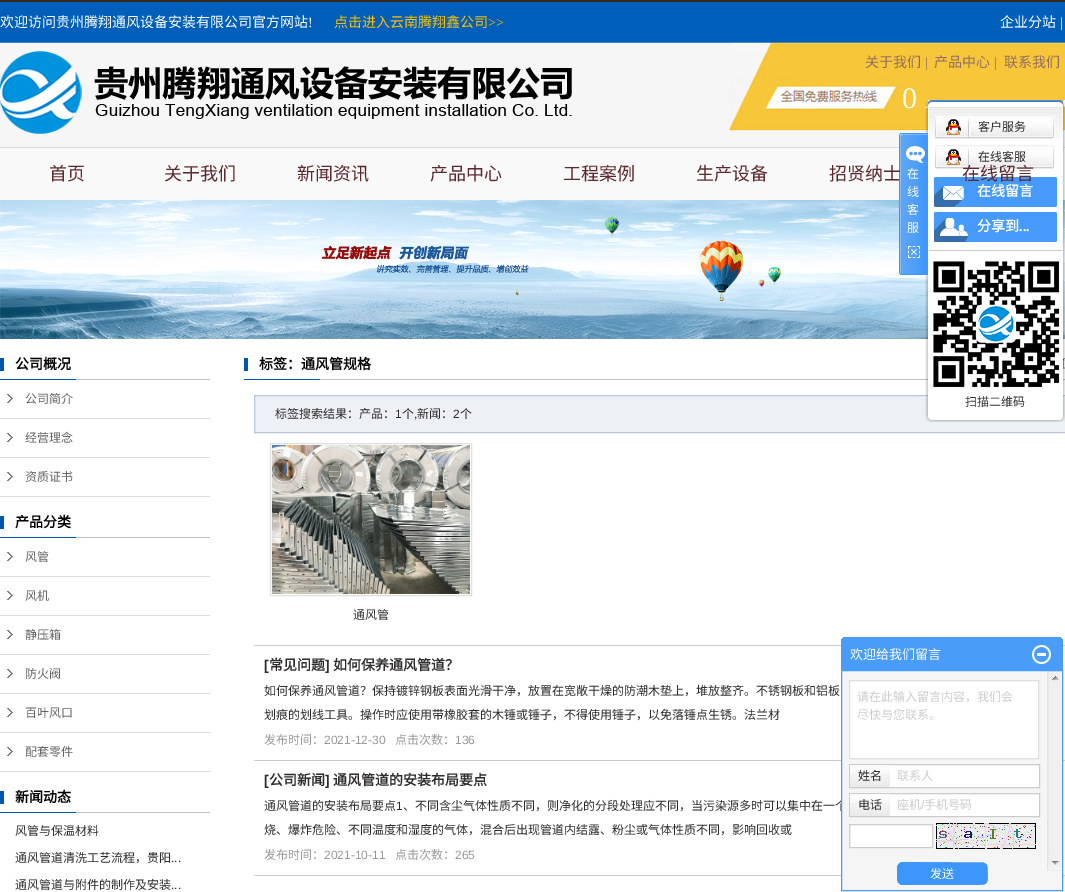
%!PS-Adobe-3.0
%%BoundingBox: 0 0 1065 892
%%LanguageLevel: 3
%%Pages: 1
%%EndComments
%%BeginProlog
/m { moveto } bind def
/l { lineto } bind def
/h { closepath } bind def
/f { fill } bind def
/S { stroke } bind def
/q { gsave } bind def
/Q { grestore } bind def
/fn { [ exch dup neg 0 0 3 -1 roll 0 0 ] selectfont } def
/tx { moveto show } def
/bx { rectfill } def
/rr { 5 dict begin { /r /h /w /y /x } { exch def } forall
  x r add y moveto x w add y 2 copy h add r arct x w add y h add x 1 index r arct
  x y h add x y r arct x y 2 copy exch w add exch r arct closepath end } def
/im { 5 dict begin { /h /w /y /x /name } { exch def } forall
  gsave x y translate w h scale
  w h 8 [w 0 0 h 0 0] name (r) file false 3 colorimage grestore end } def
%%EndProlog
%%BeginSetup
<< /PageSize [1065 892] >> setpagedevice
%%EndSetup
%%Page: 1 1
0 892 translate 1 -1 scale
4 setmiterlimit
1 setgray
0 0 1065 892 bx
0.965 setgray
0 43 1065 104 bx
(image0.raw) 0 0 1065 43 im
0.863 0.859 0.863 setrgbcolor
0 147 1065 1 bx
/NotoSansCJKSC-Regular 14 fn
1 setgray
(欢迎访问贵州腾翔通风设备安装有限公司官方网站) 0 27 tx
/LiberationSerif-Regular 14 fn
(!) 308 27 tx
/NotoSansCJKSC-Regular 14 fn
1 0.753 0 setrgbcolor
(点击进入云南腾翔鑫公司) 334 27 tx
/LiberationSerif-Regular 14 fn
(>>) 488 27 tx
/NotoSansCJKSC-Regular 14 fn
1 setgray
(企业分站) 1000 27 tx
/LiberationSerif-Regular 14 fn
(|) 1060 27 tx
(image1.raw) 0 51 572 83 im
(image2.raw) 728 43 337 88 im
/NotoSansCJKSC-Regular 14 fn
0.565 0.431 0.388 setrgbcolor
(关于我们) 865 67 tx
/LiberationSerif-Regular 14 fn
(|) 925 67 tx
/NotoSansCJKSC-Regular 14 fn
(产品中心) 934 67 tx
/LiberationSerif-Regular 14 fn
(|) 994 67 tx
/NotoSansCJKSC-Regular 14 fn
(联系我们) 1004 67 tx
/LiberationSerif-Regular 30 fn
1 setgray
(0) 902 108 tx
0.976 setgray
0 148 1065 52 bx
(image14.raw) 0 200 1065 139 im
(image17.raw) 244 358 821 22 im
0.929 0.945 0.961 setrgbcolor
254.5 395.5 m 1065.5 395.5 l 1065.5 432.5 l 254.5 432.5 l h q f Q
0.714 0.78 0.859 setrgbcolor
S
(image6.raw) 925 107 140 307 im
(image3.raw) 899 133 29 142 im
/NotoSansCJKSC-Regular 12 fn
1 setgray
(在) 907 178 tx
(线) 907 196 tx
(客) 907 214 tx
(服) 907 232 tx
(image4.raw) 908 246 12 12 im
(image5.raw) 925 100 140 7 im
(image7.raw) 929 107 133 32 im
(image8.raw) 935 115 120 24 im
(image9.raw) 946 119 15 16 im
0.18 0.173 0.173 setrgbcolor
(客户服务) 978 131 tx
(image8.raw) 935 145 120 24 im
(image9.raw) 946 149 15 16 im
(在线客服) 978 161 tx
0.271 0.604 0.98 setrgbcolor
934 177 123 30 2 rr f
(image10.raw) 934 186 30 21 im
/NotoSansCJKSC-Bold 14 fn
1 setgray
(在线留言) 977 196 tx
0.271 0.604 0.98 setrgbcolor
934 212 123 30 2 rr f
(image11.raw) 934 218 34 24 im
1 setgray
(分享到) 977 231 tx
/LiberationSerif-Bold 14 fn
(...) 1019 231 tx
0.8 setgray
929 250 133 1 bx
(image12.raw) 933 261 127 127 im
/NotoSansCJKSC-Regular 12 fn
0.2 setgray
(扫描二维码) 965 406 tx
(image13.raw) 925 414 140 8 im
/NotoSansCJKSC-Regular 18 fn
0.369 0.161 0.18 setrgbcolor
(首页) 49 180 tx
(关于我们) 164 180 tx
(新闻资讯) 297 180 tx
(产品中心) 430 180 tx
(工程案例) 563 180 tx
(生产设备) 696 180 tx
(招贤纳士) 829 180 tx
(在线留言) 962 180 tx
(image15.raw) 0 358 210 22 im
/NotoSansCJKSC-Bold 14 fn
0 setgray
(公司概况) 15 369 tx
(image16.raw) 7 394 6 9 im
0.867 setgray
0 418 210 1 bx
/NotoSansCJKSC-Regular 12 fn
0.4 setgray
(公司简介) 25 403 tx
(image16.raw) 7 433 6 9 im
0.867 setgray
0 457 210 1 bx
0.4 setgray
(经营理念) 25 442 tx
(image16.raw) 7 472 6 9 im
0.867 setgray
0 496 210 1 bx
0.4 setgray
(资质证书) 25 481 tx
(image15.raw) 0 516 210 22 im
/NotoSansCJKSC-Bold 14 fn
0 setgray
(产品分类) 15 527 tx
(image16.raw) 7 552 6 9 im
0.867 setgray
0 576 210 1 bx
/NotoSansCJKSC-Regular 12 fn
0.4 setgray
(风管) 25 561 tx
(image16.raw) 7 591 6 9 im
0.867 setgray
0 615 210 1 bx
0.4 setgray
(风机) 25 600 tx
(image16.raw) 7 630 6 9 im
0.867 setgray
0 654 210 1 bx
0.4 setgray
(静压箱) 25 639 tx
(image16.raw) 7 669 6 9 im
0.867 setgray
0 693 210 1 bx
0.4 setgray
(防火阀) 25 678 tx
(image16.raw) 7 708 6 9 im
0.867 setgray
0 732 210 1 bx
0.4 setgray
(百叶风口) 25 717 tx
(image16.raw) 7 747 6 9 im
0.867 setgray
0 771 210 1 bx
0.4 setgray
(配套零件) 25 756 tx
(image15.raw) 0 791 210 22 im
/NotoSansCJKSC-Bold 14 fn
0 setgray
(新闻动态) 15 802 tx
/NotoSansCJKSC-Regular 12 fn
0.18 0.173 0.173 setrgbcolor
(风管与保温材料) 15 835 tx
(通风管道清洗工艺流程，贵阳) 15 862 tx
/LiberationSans-Regular 12 fn
(...) 171 862 tx
/NotoSansCJKSC-Regular 12 fn
(通风管道与附件的制作及安装) 15 889 tx
/LiberationSans-Regular 12 fn
(...) 171 889 tx
/NotoSansCJKSC-Bold 14 fn
0 setgray
(标签：通风管规格) 259 369 tx
/NotoSansCJKSC-Regular 12 fn
0.18 0.173 0.173 setrgbcolor
(标签搜索结果：产品：) 275 418 tx
/LiberationSans-Regular 12 fn
(1) 395 418 tx
/NotoSansCJKSC-Regular 12 fn
(个) 402 418 tx
/LiberationSans-Regular 12 fn
(,) 414 418 tx
/NotoSansCJKSC-Regular 12 fn
(新闻：) 417 418 tx
/LiberationSans-Regular 12 fn
(2) 453 418 tx
/NotoSansCJKSC-Regular 12 fn
(个) 460 418 tx
0.878 0.882 0.863 setrgbcolor
270.5 443.5 201 152 rectstroke
(image18.raw) 272 445 198 149 im
0.18 0.173 0.173 setrgbcolor
(通风管) 353 619 tx
0.8 setgray
254 645 811 1 bx
/LiberationSans-Bold 14 fn
0.18 0.173 0.173 setrgbcolor
([) 264 670 tx
/NotoSansCJKSC-Bold 14 fn
(常见问题) 269 670 tx
/LiberationSans-Bold 14 fn
(]) 325 670 tx
/NotoSansCJKSC-Bold 14 fn
(如何保养通风管道？) 333 670 tx
/NotoSansCJKSC-Regular 12 fn
(如何保养通风管道？保持镀锌钢板表面光滑干净，放置在宽敞干燥的防潮木垫上，堆放整齐。不锈钢板和铝板) 264 695 tx
(划痕的划线工具。操作时应使用带橡胶套的木锤或锤子，不得使用锤子，以免落锤点生锈。法兰材) 264 719 tx
0.6 setgray
(发布时间：) 264 744 tx
/LiberationSans-Regular 12 fn
(2021-12-30) 324 744 tx
/NotoSansCJKSC-Regular 12 fn
(点击次数：) 395 744 tx
/LiberationSans-Regular 12 fn
(136) 455 744 tx
0.8 setgray
254 760 811 1 bx
/LiberationSans-Bold 14 fn
0.18 0.173 0.173 setrgbcolor
([) 264 785 tx
/NotoSansCJKSC-Bold 14 fn
(公司新闻) 269 785 tx
/LiberationSans-Bold 14 fn
(]) 325 785 tx
/NotoSansCJKSC-Bold 14 fn
(通风管道的安装布局要点) 333 785 tx
/NotoSansCJKSC-Regular 12 fn
(通风管道的安装布局要点) 264 810 tx
/LiberationSans-Regular 12 fn
(1) 396 810 tx
/NotoSansCJKSC-Regular 12 fn
(、不同含尘气体性质不同，则净化的分段处理应不同，当污染源多时可以集中在一个) 403 810 tx
(烧、爆炸危险、不同温度和湿度的气体，混合后出现管道内结露、粉尘或气体性质不同，影响回收或) 264 834 tx
0.6 setgray
(发布时间：) 264 859 tx
/LiberationSans-Regular 12 fn
(2021-10-11) 324 859 tx
/NotoSansCJKSC-Regular 12 fn
(点击次数：) 395 859 tx
/LiberationSans-Regular 12 fn
(265) 455 859 tx
0.8 setgray
254 875 811 1 bx
0.29 0.612 0.976 setrgbcolor
843 637 218 1 bx
842 638 220 1 bx
841 639 222 31 bx
/NotoSansCJKSC-Regular 13 fn
1 setgray
(欢迎给我们留言) 850 659 tx
(image19.raw) 1032 645 19 19 im
(image20.raw) 842 671 220 219 im
0.29 0.612 0.976 setrgbcolor
841.5 670.5 221 220 rectstroke
1 setgray
849.5 680.5 m 1038.5 680.5 l 1038.5 758.5 l 849.5 758.5 l h q f Q
0.871 setgray
S
/NotoSansCJKSC-Regular 12 fn
0.8 setgray
(请在此输入留言内容，我们会) 857 701 tx
(尽快与您联系。) 857 719 tx
1 setgray
890 765 149 22 bx
0.8 setgray
849.5 764.5 190 23 rectstroke
(image21.raw) 850 765 40 22 im
0.18 0.173 0.173 setrgbcolor
(姓名) 858 780 tx
0.8 setgray
(联系人) 897 780 tx
1 setgray
890 794 149 22 bx
0.8 setgray
849.5 793.5 190 23 rectstroke
(image21.raw) 850 794 40 22 im
0.18 0.173 0.173 setrgbcolor
(电话) 858 809 tx
0.8 setgray
(座机) 897 809 tx
/LiberationSans-Regular 12 fn
(/) 921 809 tx
/NotoSansCJKSC-Regular 12 fn
(手机号码) 924 809 tx
1 setgray
849.5 824.5 m 932.5 824.5 l 932.5 847.5 l 849.5 847.5 l h q f Q
0.8 setgray
S
(image22.raw) 936 823 100 26 im
(image23.raw) 897 862 91 24 im
1 setgray
(发送) 930 878 tx
showpage
%%EOF
